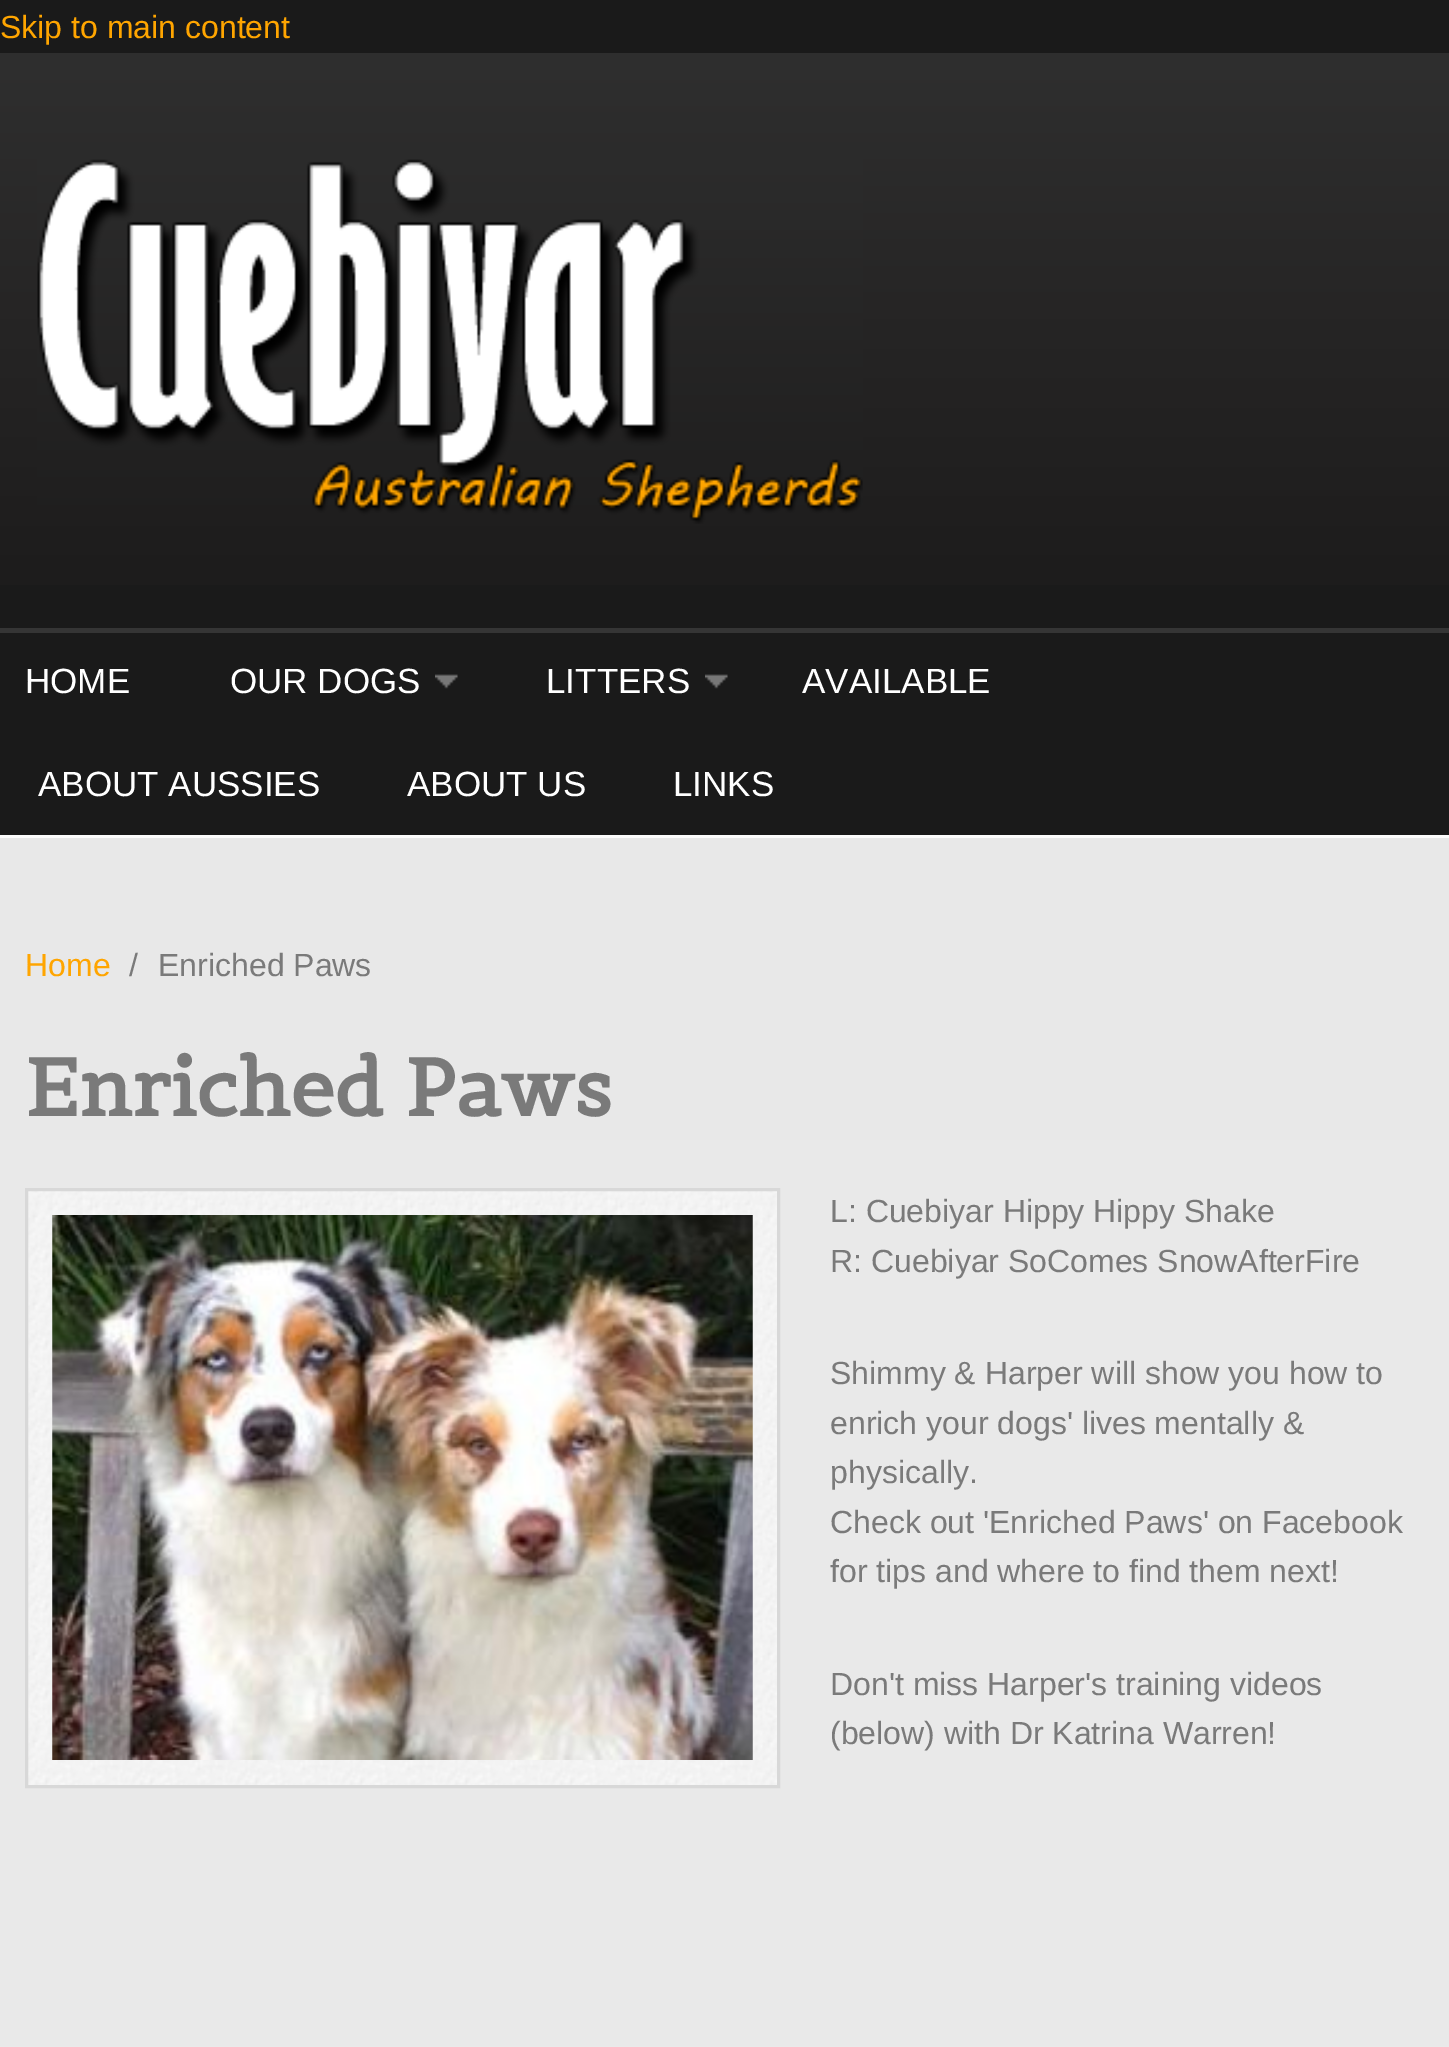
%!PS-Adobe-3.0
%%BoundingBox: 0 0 1449 2047
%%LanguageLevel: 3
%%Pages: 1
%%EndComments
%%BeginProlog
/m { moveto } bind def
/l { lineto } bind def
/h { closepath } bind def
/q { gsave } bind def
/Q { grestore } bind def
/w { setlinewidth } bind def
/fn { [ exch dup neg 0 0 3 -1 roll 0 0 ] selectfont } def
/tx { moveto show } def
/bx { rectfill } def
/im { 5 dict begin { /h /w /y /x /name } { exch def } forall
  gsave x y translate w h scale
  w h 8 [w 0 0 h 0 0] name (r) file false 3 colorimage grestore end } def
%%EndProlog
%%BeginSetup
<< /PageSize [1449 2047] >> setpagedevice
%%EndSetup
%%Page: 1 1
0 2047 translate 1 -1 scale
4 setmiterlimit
0.102 setgray
0 0 1449 2047 bx
/LiberationSans-Regular 32 fn
1 0.647 0 setrgbcolor
(Skip to main content) 0 38 tx
q 0 53 m 1449 53 l 1449 585 l 0 585 l h clip newpath
<< /ShadingType 2 /ColorSpace /DeviceRGB /Coords [725 52 725 628] /Extend [true true] /Function << /FunctionType 2 /Domain [0 1] /C0 [0.184 0.184 0.184] /C1 [0.106 0.102 0.102] /N 1 >> >> shfill Q
(image0.raw) 37 159 826 365 im
0.208 setgray
0 628 1449 5 bx
/LiberationSans-Regular 35 fn
1 setgray
(HOME) 25 693 tx
(image1.raw) 435 674 23 15 im
(OUR DOGS) 230 693 tx
(image1.raw) 705 674 23 15 im
(LITTERS) 546 693 tx
(AVAILABLE) 802 693 tx
(ABOUT AUSSIES) 38 796 tx
(ABOUT US) 407 796 tx
(LINKS) 673 796 tx
0.988 setgray
0 835 1449 3 bx
q 0 838 m 1449 838 l 1449 2047 l 0 2047 l h clip newpath
<< /ShadingType 2 /ColorSpace /DeviceRGB /Coords [725 838 725 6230] /Extend [true true] /Function << /FunctionType 2 /Domain [0 1] /C0 [0.91 0.91 0.91] /C1 [0.937 0.937 0.937] /N 1 >> >> shfill Q
/LiberationSans-Regular 32 fn
1 0.647 0 setrgbcolor
(Home) 25 976 tx
0.478 setgray
(/) 129 976 tx
(Enriched Paws) 158 976 tx
/Belgrano-Bold 80 fn
(Enriched Paws) 25 1116 tx
(image2.raw) 28 1191 749 594 im
0.847 setgray
3 w
26.5 1189.5 752 597 rectstroke
(image3.raw) 52 1215 701 545 im
/LiberationSans-Regular 32 fn
0.478 setgray
(L: Cuebiyar Hippy Hippy Shake) 830 1222 tx
(R: Cuebiyar SoComes SnowAfterFire) 830 1272 tx
(Shimmy & Harper will show you how to) 830 1384 tx
(enrich your dogs' lives mentally &) 830 1434 tx
(physically.) 830 1483 tx
(Check out 'Enriched Paws' on Facebook) 830 1533 tx
(for tips and where to find them next!) 830 1582 tx
(Don't miss Harper's training videos) 830 1695 tx
(\(below\) with Dr Katrina Warren!) 830 1744 tx
showpage
%%EOF
